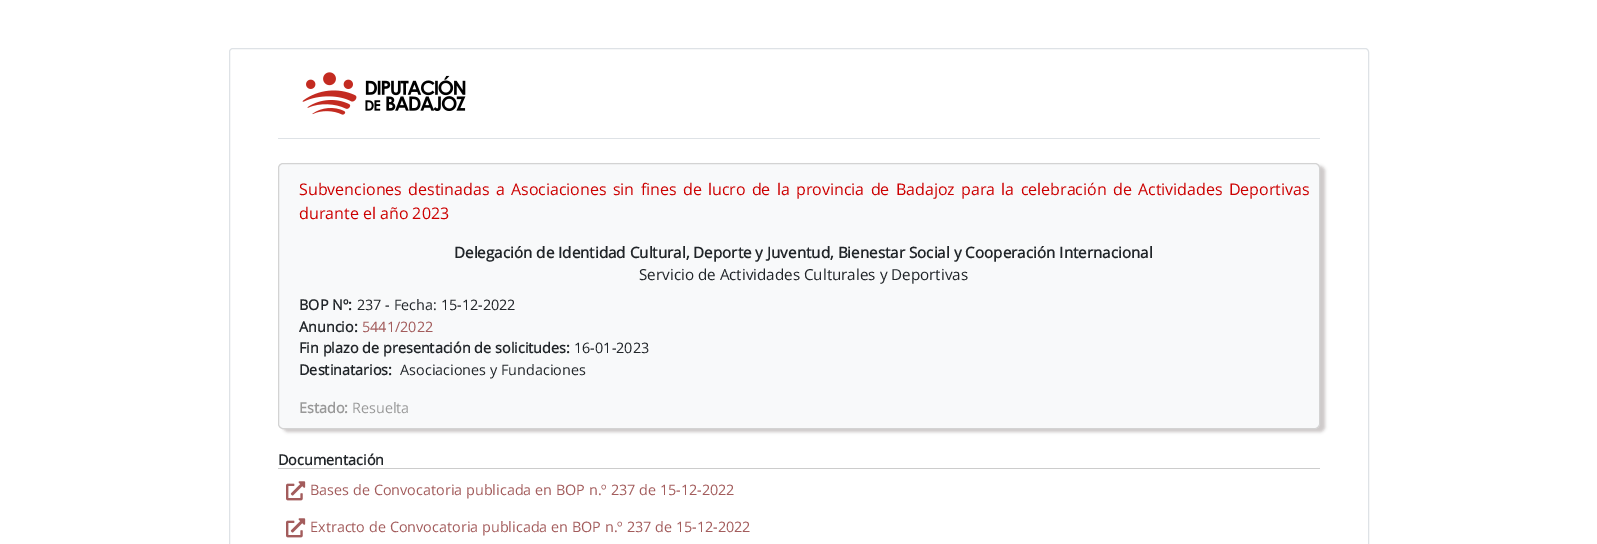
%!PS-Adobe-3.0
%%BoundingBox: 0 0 1597 544
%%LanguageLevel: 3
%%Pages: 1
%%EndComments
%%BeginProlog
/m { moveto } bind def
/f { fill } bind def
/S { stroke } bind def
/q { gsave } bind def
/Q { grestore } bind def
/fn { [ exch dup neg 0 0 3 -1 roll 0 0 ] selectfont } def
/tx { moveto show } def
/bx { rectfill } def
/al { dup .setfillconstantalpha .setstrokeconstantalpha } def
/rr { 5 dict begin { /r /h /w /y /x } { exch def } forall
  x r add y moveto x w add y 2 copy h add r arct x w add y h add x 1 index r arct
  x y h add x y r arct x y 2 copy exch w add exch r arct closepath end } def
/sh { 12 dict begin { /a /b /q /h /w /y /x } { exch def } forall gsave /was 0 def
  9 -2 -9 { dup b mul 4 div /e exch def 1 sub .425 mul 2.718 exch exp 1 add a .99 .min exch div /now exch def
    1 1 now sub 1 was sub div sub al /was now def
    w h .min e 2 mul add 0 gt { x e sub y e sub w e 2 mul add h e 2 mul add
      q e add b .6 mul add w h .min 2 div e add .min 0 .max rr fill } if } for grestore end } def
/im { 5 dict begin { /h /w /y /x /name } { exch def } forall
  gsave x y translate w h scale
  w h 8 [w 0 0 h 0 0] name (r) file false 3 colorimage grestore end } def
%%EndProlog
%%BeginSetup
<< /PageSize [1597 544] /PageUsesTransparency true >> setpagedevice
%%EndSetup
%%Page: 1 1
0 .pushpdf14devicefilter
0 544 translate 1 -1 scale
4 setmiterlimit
1 setgray
0 0 1597 544 bx
0.871 0.886 0.902 setrgbcolor
229.5 48.5 1139 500 3.5 rr S
278 138 1042 1 bx
(image0.raw) 302 72 164 43 im
0.8 0.784 0.784 setrgbcolor
283 166 1042 266 5 1.5 1 sh
0.973 0.976 0.98 setrgbcolor
278.5 163.5 1041 265 4.5 rr q f Q
0.827 setgray
S
/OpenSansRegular-Regular 16 fn
0.8 0 0 setrgbcolor
299 195 m 2.1 0 32 (Subvenciones destinadas a Asociaciones sin fines de lucro de la provincia de Badajoz para la celebración de Actividades Deportivas) widthshow
(durante el año 2023) 299 219 tx
/OpenSansRegular-Bold 15.2 fn
0.129 0.145 0.161 setrgbcolor
(Delegación de Identidad Cultural, Deporte y Juventud, Bienestar Social y Cooperación Internacional) 454 258 tx
/OpenSansRegular-Regular 15.2 fn
(Servicio de Actividades Culturales y Deportivas) 639 280 tx
/OpenSansRegular-Bold 14.4 fn
(BOP Nº:) 299 310 tx
/OpenSansRegular-Regular 14.4 fn
(237 - Fecha: 15-12-2022) 357 310 tx
/OpenSansRegular-Bold 14.4 fn
(Anuncio:) 299 332 tx
/OpenSansRegular-Regular 14.4 fn
0.639 0.361 0.361 setrgbcolor
(5441/2022) 362 332 tx
/OpenSansRegular-Bold 14.4 fn
0.129 0.145 0.161 setrgbcolor
(Fin plazo de presentación de solicitudes:) 299 353 tx
/OpenSansRegular-Regular 14.4 fn
(16-01-2023) 574 353 tx
/OpenSansRegular-Bold 14.4 fn
(Destinatarios:) 299 375 tx
/OpenSansRegular-Regular 14.4 fn
(Asociaciones y Fundaciones) 400 375 tx
/OpenSansRegular-Bold 14.4 fn
0.6 setgray
(Estado:) 299 413 tx
/OpenSansRegular-Regular 14.4 fn
(Resuelta) 352 413 tx
0.8 setgray
278 468 1042 1 bx
/OpenSansRegular-Bold 14.4 fn
0.129 0.145 0.161 setrgbcolor
(Documentación) 278 465 tx
(image1.raw) 286 481 20 20 im
/OpenSansRegular-Regular 14.4 fn
0.639 0.361 0.361 setrgbcolor
(Bases de Convocatoria publicada en BOP n.º 237 de 15-12-2022) 310 495 tx
(image1.raw) 286 518 20 20 im
(Extracto de Convocatoria publicada en BOP n.º 237 de 15-12-2022) 310 532 tx
.poppdf14devicefilter showpage
%%EOF
